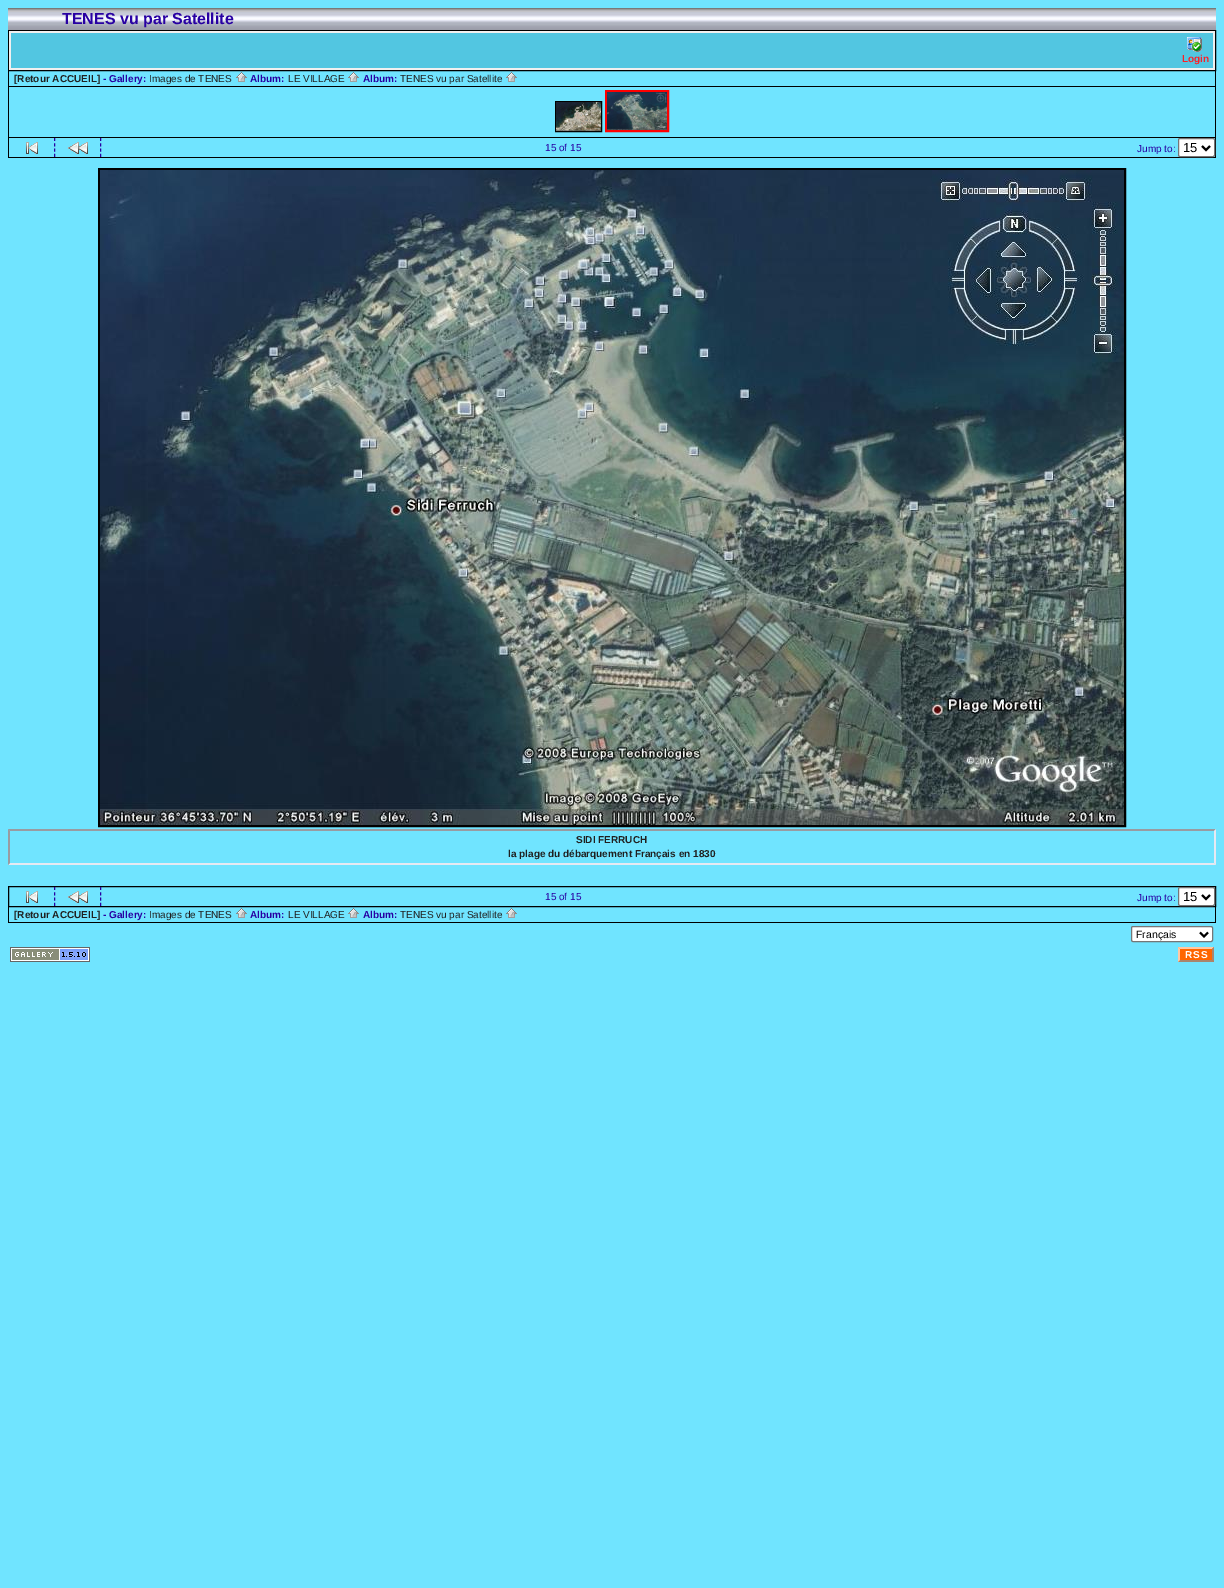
%!PS-Adobe-3.0
%%BoundingBox: 0 0 1224 1588
%%LanguageLevel: 3
%%Pages: 1
%%EndComments
%%BeginProlog
/m { moveto } bind def
/l { lineto } bind def
/h { closepath } bind def
/f { fill } bind def
/S { stroke } bind def
/q { gsave } bind def
/Q { grestore } bind def
/w { setlinewidth } bind def
/fn { [ exch dup neg 0 0 3 -1 roll 0 0 ] selectfont } def
/tx { moveto show } def
/bx { rectfill } def
/rr { 5 dict begin { /r /h /w /y /x } { exch def } forall
  x r add y moveto x w add y 2 copy h add r arct x w add y h add x 1 index r arct
  x y h add x y r arct x y 2 copy exch w add exch r arct closepath end } def
/im { 5 dict begin { /h /w /y /x /name } { exch def } forall
  gsave x y translate w h scale
  w h 8 [w 0 0 h 0 0] name (r) file false 3 colorimage grestore end } def
%%EndProlog
%%BeginSetup
<< /PageSize [1224 1588] >> setpagedevice
%%EndSetup
%%Page: 1 1
0 1588 translate 1 -1 scale
4 setmiterlimit
0.439 0.894 1 setrgbcolor
0 0 1224 1588 bx
(image0.raw) 8 8 1208 22 im
/LiberationSans-Bold 16 fn
0.157 0 0.639 setrgbcolor
(TENES vu par Satellite) 62 24 tx
0 setgray
8.5 30.5 1207 40 rectstroke
0.941 setgray
9 31 1206 39 bx
0.322 0.776 0.882 setrgbcolor
11 33 1202 35 bx
(image1.raw) 1187 37 15 15 im
/LiberationSans-Bold 10 fn
1 0.118 0.145 setrgbcolor
(Login) 1182 62 tx
0 setgray
1215 71 1 87 bx
8 86 1208 1 bx
8 71 1 16 bx
0.125 setgray
([Retour ACCUEIL]) 14 82 tx
0.157 0 0.639 setrgbcolor
(- Gallery:) 103 82 tx
/LiberationSans-Regular 10 fn
0.125 setgray
(Images de TENES) 149 82 tx
(image2.raw) 236 72 11 10 im
/LiberationSans-Bold 10 fn
0.157 0 0.639 setrgbcolor
(Album:) 250 82 tx
/LiberationSans-Regular 10 fn
0.125 setgray
(LE VILLAGE) 288 82 tx
(image2.raw) 348 72 11 10 im
/LiberationSans-Bold 10 fn
0.157 0 0.639 setrgbcolor
(Album:) 363 82 tx
/LiberationSans-Regular 10 fn
0.125 setgray
(TENES vu par Satellite) 400 82 tx
(image2.raw) 506 72 11 10 im
0 setgray
8 137 1208 1 bx
8 87 1 51 bx
1 0 0 setrgbcolor
2 w
606 91 62 40 rectstroke
0 setgray
1 w
555.5 101.5 46 30 rectstroke
(image3.raw) 607 92 60 38 im
(image4.raw) 556 102 45 29 im
8 157 1208 1 bx
8 138 1 20 bx
0.157 0 0.639 setrgbcolor
[3 2.33] 0 setdash
54.5 138 m 54.5 157 l 100.5 138 m 100.5 157 l S
(image5.raw) 26 142 12 12 im
(image6.raw) 68 142 20 12 im
(15 of 15) 545 151 tx
(Jump to:) 1137 152 tx
1 setgray
1178.5 138.5 36 18 1.5 rr q f Q
0.463 setgray
[] 0 setdash
S
0 setgray
2 w
1202 146 m 1206 150 l 1210 146 l S
/LiberationSans-Regular 13 fn
(15) 1183 152 tx
99 169 1026 657 rectstroke
(image7.raw) 100 170 1024 655 im
0.6 0.608 0.631 setrgbcolor
8 829 m 1216 829 l 1214 831 l 10 831 l h f
0.902 0.914 0.949 setrgbcolor
1216 829 m 1216 865 l 1214 863 l 1214 831 l h f
1216 865 m 8 865 l 10 863 l 1214 863 l h f
0.6 0.608 0.631 setrgbcolor
8 865 m 8 829 l 10 831 l 10 863 l h f
/LiberationSans-Bold 10 fn
0.125 setgray
(SIDI FERRUCH) 576 843 tx
(la plage du débarquement Français en 1830) 508 857 tx
0 setgray
1 w
8.5 886.5 1207 20 rectstroke
0.157 0 0.639 setrgbcolor
[3 2.33] 0 setdash
54.5 887 m 54.5 906 l 100.5 887 m 100.5 906 l S
(image5.raw) 26 891 12 12 im
(image6.raw) 68 891 20 12 im
/LiberationSans-Regular 10 fn
(15 of 15) 545 900 tx
(Jump to:) 1137 901 tx
1 setgray
1178.5 887.5 36 18 1.5 rr q f Q
0.463 setgray
[] 0 setdash
S
0 setgray
2 w
1202 895 m 1206 899 l 1210 895 l S
/LiberationSans-Regular 13 fn
(15) 1183 901 tx
1215 907 1 16 bx
8 922 1208 1 bx
8 907 1 16 bx
/LiberationSans-Bold 10 fn
0.125 setgray
([Retour ACCUEIL]) 14 918 tx
0.157 0 0.639 setrgbcolor
(- Gallery:) 103 918 tx
/LiberationSans-Regular 10 fn
0.125 setgray
(Images de TENES) 149 918 tx
(image2.raw) 236 908 11 10 im
/LiberationSans-Bold 10 fn
0.157 0 0.639 setrgbcolor
(Album:) 250 918 tx
/LiberationSans-Regular 10 fn
0.125 setgray
(LE VILLAGE) 288 918 tx
(image2.raw) 348 908 11 10 im
/LiberationSans-Bold 10 fn
0.157 0 0.639 setrgbcolor
(Album:) 363 918 tx
/LiberationSans-Regular 10 fn
0.125 setgray
(TENES vu par Satellite) 400 918 tx
(image2.raw) 506 908 11 10 im
1 setgray
1131.5 926.5 81 15 1.5 rr q f Q
0.463 setgray
1 w
S
0 setgray
2 w
1200 932.5 m 1204 936.5 l 1208 932.5 l S
/LiberationSans-Regular 10.5 fn
(Français) 1136 938 tx
(image8.raw) 10 947 80 15 im
1 0.4 0 setrgbcolor
1178 947 36 15 bx
/LiberationSans-Bold 10 fn
1 setgray
1185 958 m 1 0 (RSS) ashow
1 0.784 0.643 setrgbcolor
1178 947 m 1214 947 l 1212 949 l 1180 949 l h f
0.667 0.522 0.427 setrgbcolor
1214 947 m 1214 962 l 1212 960 l 1212 949 l h f
1214 962 m 1178 962 l 1180 960 l 1212 960 l h f
1 0.784 0.643 setrgbcolor
1178 962 m 1178 947 l 1180 949 l 1180 960 l h f
showpage
%%EOF
